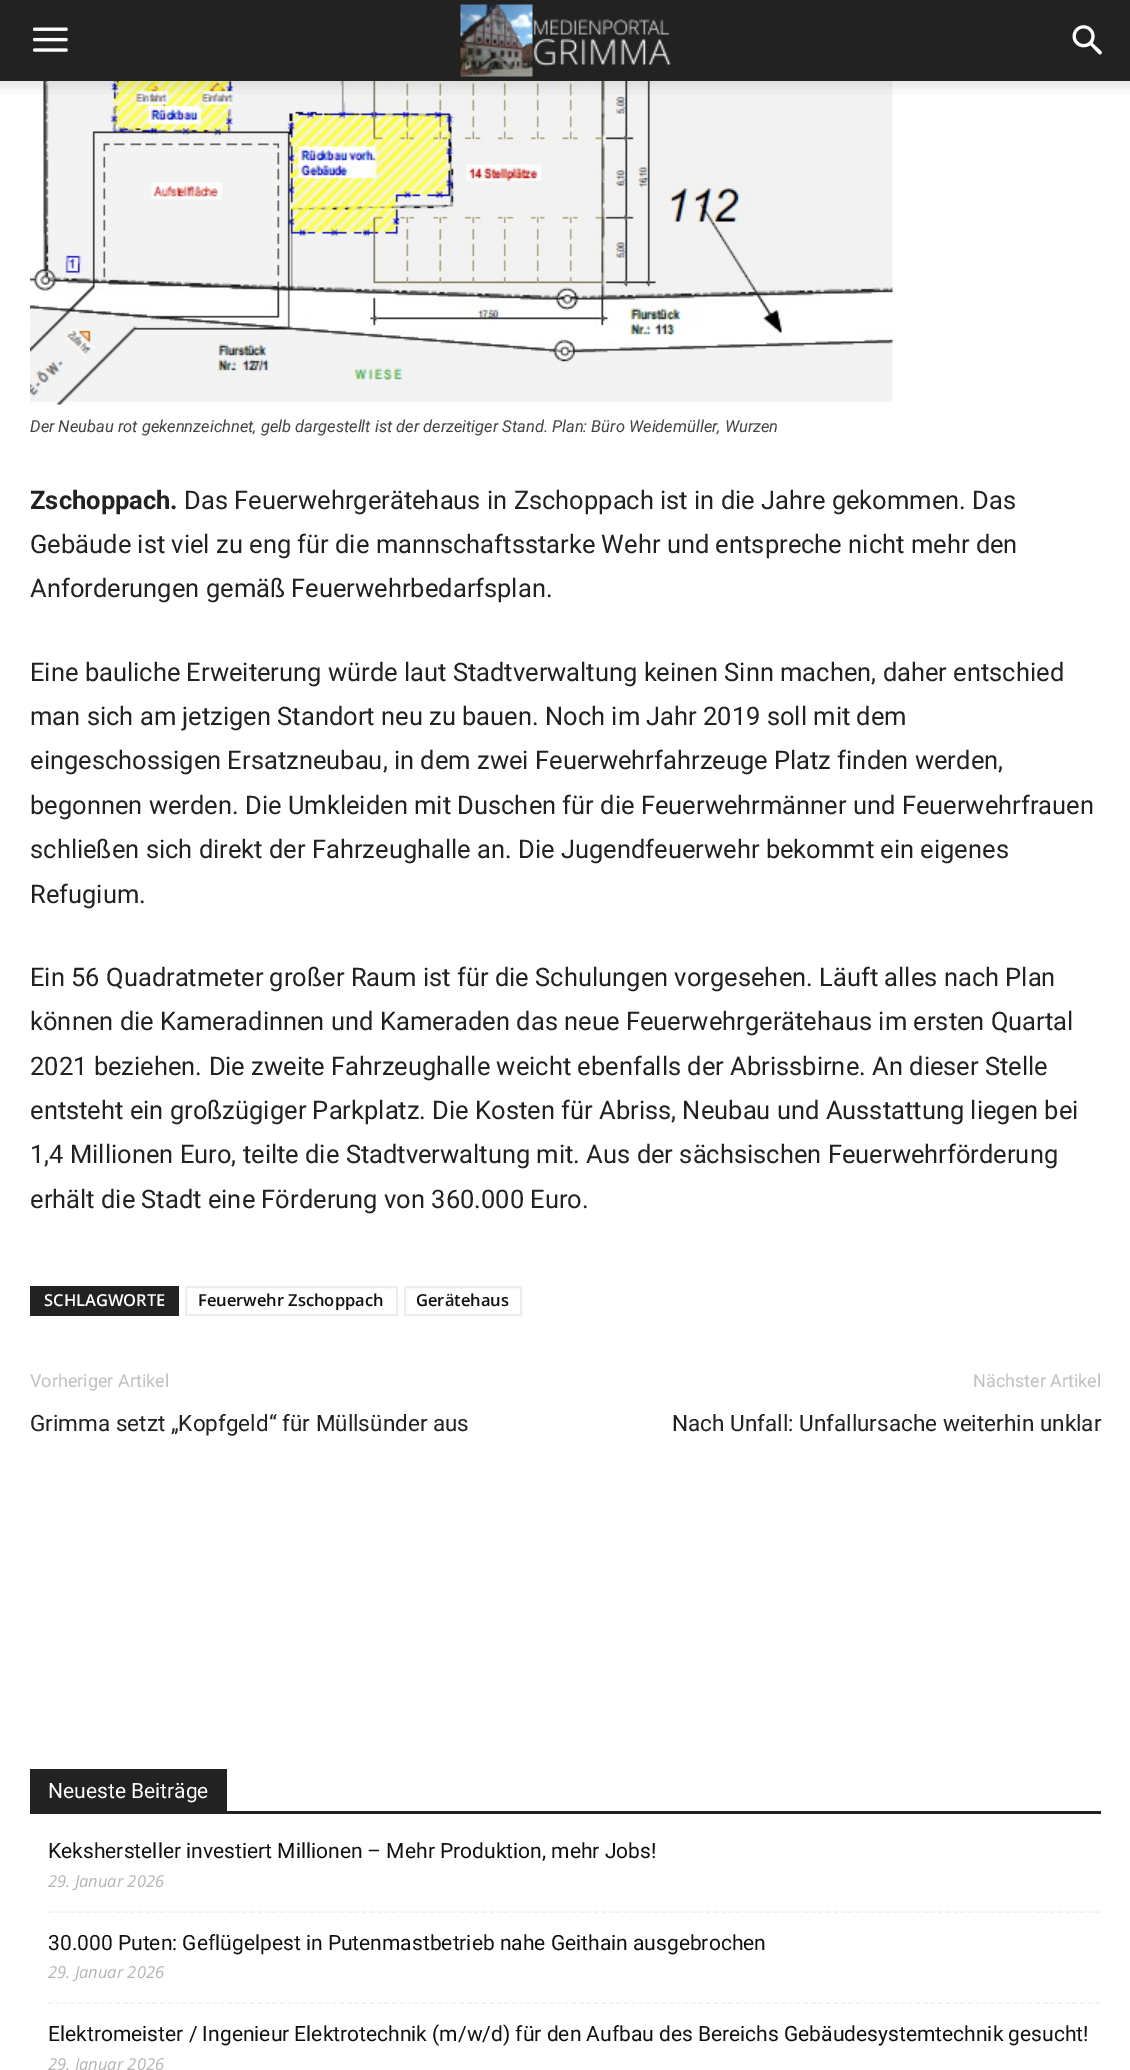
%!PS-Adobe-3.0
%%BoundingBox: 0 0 1130 2070
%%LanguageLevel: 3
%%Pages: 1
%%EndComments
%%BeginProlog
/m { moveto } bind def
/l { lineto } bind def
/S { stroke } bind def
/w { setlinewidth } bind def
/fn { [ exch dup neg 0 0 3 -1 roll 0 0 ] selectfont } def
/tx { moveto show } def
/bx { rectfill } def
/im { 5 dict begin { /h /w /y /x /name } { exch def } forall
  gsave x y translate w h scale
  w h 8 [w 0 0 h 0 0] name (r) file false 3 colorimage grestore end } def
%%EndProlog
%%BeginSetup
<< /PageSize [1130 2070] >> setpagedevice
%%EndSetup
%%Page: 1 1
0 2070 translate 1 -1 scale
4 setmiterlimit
1 setgray
0 0 1130 2070 bx
0.133 setgray
0 0 1130 81 bx
(image0.raw) 33 27 35 25 im
(image1.raw) 460 4 211 73 im
(image2.raw) 1072 25 30 30 im
(image4.raw) 30 81 863 324 im
(image3.raw) 0 81 1130 13 im
/Roboto-Italic 16.5 fn
0.267 setgray
(Der Neubau rot gekennzeichnet, gelb dargestellt ist der derzeitiger Stand. Plan: Büro Weidemüller, Wurzen) 30 432 tx
/Roboto-Bold 25.5 fn
0.133 setgray
(Zschoppach.) 30 509 tx
/Roboto-Regular 25.5 fn
(Das Feuerwehrgerätehaus in Zschoppach ist in die Jahre gekommen. Das) 184 509 tx
(Gebäude ist viel zu eng für die mannschaftsstarke Wehr und entspreche nicht mehr den) 30 553 tx
(Anforderungen gemäß Feuerwehrbedarfsplan.) 30 597 tx
(Eine bauliche Erweiterung würde laut Stadtverwaltung keinen Sinn machen, daher entschied) 30 681 tx
(man sich am jetzigen Standort neu zu bauen. Noch im Jahr 2019 soll mit dem) 30 725 tx
(eingeschossigen Ersatzneubau, in dem zwei Feuerwehrfahrzeuge Platz finden werden,) 30 769 tx
(begonnen werden. Die Umkleiden mit Duschen für die Feuerwehrmänner und Feuerwehrfrauen) 30 814 tx
(schließen sich direkt der Fahrzeughalle an. Die Jugendfeuerwehr bekommt ein eigenes) 30 858 tx
(Refugium.) 30 903 tx
(Ein 56 Quadratmeter großer Raum ist für die Schulungen vorgesehen. Läuft alles nach Plan) 30 986 tx
(können die Kameradinnen und Kameraden das neue Feuerwehrgerätehaus im ersten Quartal) 30 1030 tx
(2021 beziehen. Die zweite Fahrzeughalle weicht ebenfalls der Abrissbirne. An dieser Stelle) 30 1075 tx
(entsteht ein großzügiger Parkplatz. Die Kosten für Abriss, Neubau und Ausstattung liegen bei) 30 1119 tx
(1,4 Millionen Euro, teilte die Stadtverwaltung mit. Aus der sächsischen Feuerwehrförderung) 30 1163 tx
(erhält die Stadt eine Förderung von 360.000 Euro.) 30 1208 tx
30 1286 149 30 bx
/OpenSans-SemiBold 16.5 fn
1 setgray
(SCHLAGWORTE) 44 1306 tx
0.929 setgray
2 w
186 1287 211 28 rectstroke
0.067 setgray
(Feuerwehr Zschoppach) 198 1306 tx
0.929 setgray
405 1287 116 28 rectstroke
0.067 setgray
(Gerätehaus) 416 1306 tx
/Roboto-Regular 18 fn
0.757 setgray
(Vorheriger Artikel) 30 1387 tx
/Roboto-Regular 22.5 fn
0.133 setgray
(Grimma setzt „Kopfgeld“ für Müllsünder aus) 30 1431 tx
/Roboto-Regular 18 fn
0.757 setgray
(Nächster Artikel) 973 1387 tx
/Roboto-Regular 22.5 fn
0.133 setgray
(Nach Unfall: Unfallursache weiterhin unklar) 672 1431 tx
30 1811 1071 3 bx
30 1769 197 42 bx
/Roboto-Regular 21 fn
1 setgray
(Neueste Beiträge) 48 1798 tx
0.945 setgray
1.5 w
[4.5 2.98] 0 setdash
48 1912 m 1101 1912 l S
0.067 setgray
(Kekshersteller investiert Millionen – Mehr Produktion, mehr Jobs!) 48 1858 tx
/OpenSans-Italic 16.5 fn
0.71 setgray
(29. Januar 2026) 48 1887 tx
0.945 setgray
48 2003 m 1101 2003 l S
/Roboto-Regular 21 fn
0.067 setgray
(30.000 Puten: Geflügelpest in Putenmastbetrieb nahe Geithain ausgebrochen) 48 1950 tx
/OpenSans-Italic 16.5 fn
0.71 setgray
(29. Januar 2026) 48 1978 tx
/Roboto-Regular 21 fn
0.067 setgray
(Elektromeister / Ingenieur Elektrotechnik \(m/w/d\) für den Aufbau des Bereichs Gebäudesystemtechnik gesucht!) 48 2041 tx
/OpenSans-Italic 16.5 fn
0.71 setgray
(29. Januar 2026) 48 2070 tx
showpage
%%EOF
